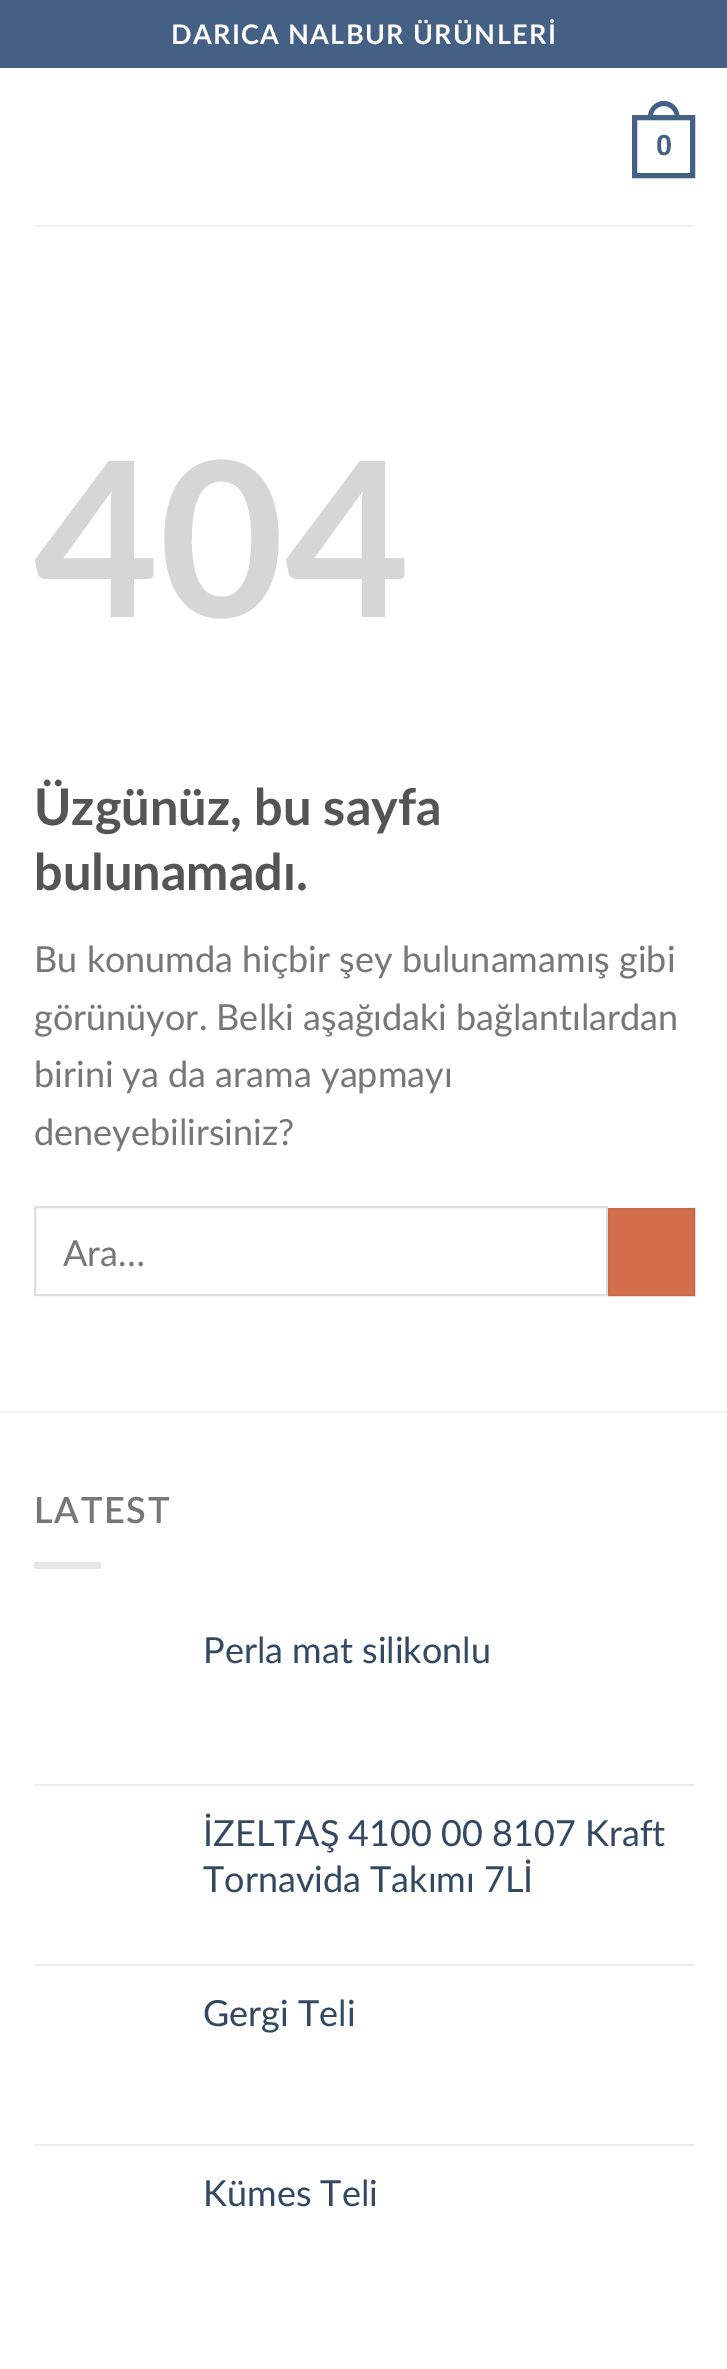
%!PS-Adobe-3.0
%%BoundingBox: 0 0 727 2369
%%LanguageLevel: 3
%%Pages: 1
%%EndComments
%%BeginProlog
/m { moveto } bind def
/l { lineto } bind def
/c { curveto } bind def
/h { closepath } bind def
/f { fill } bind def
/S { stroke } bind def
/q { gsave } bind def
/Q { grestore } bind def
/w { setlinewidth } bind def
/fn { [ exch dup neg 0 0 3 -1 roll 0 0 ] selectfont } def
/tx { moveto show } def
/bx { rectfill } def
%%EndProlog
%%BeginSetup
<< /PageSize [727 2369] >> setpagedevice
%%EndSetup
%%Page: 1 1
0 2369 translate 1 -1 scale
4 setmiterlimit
1 setgray
0 0 727 2369 bx
0.267 0.376 0.518 setrgbcolor
0 0 727 68 bx
/Lato-Bold 27 fn
1 setgray
171 44 m 1.35 0 (DARICA NALBUR ÜRÜNLERİ) ashow
0.267 0.376 0.518 setrgbcolor
5 w
634.5 117.5 58 58 rectstroke
664 101 m 672.5 101 679.5 108.5 679.5 117 c 679.5 119 l 648 119 l 648 117 l 648 108.5 655 101 664 101 c h 664 106 m 670 106 675 111 675 117 c 675 119 l 652.5 119 l 652.5 117 l 652.5 111 657.5 106 664 106 c h eofill
/LiberationSans-Bold 29 fn
(0) 656 155 tx
0.945 setgray
34 225 661 2 bx
/Lato-Bold 216 fn
0.839 setgray
(404) 34 617 tx
/Lato-Bold 50.5 fn
0.333 setgray
(Üzgünüz, bu sayfa) 34 825 tx
(bulunamadı.) 34 890 tx
/Lato-Regular 36 fn
0.467 setgray
(Bu konumda hiçbir şey bulunamamış gibi) 34 972 tx
(görünüyor. Belki aşağıdaki bağlantılardan) 34 1030 tx
(birini ya da arama yapmayı) 34 1087 tx
(deneyebilirsiniz?) 34 1145 tx
0.867 setgray
2 w
35 1207 572 88 rectstroke
0.467 setgray
(Ara…) 63 1266 tx
0.824 0.431 0.294 setrgbcolor
609 1209 m 694 1209 l 694 1295 l 609 1295 l h q f Q
0.784 0.412 0.278 setrgbcolor
S
0.949 setgray
0 1411 727 2 bx
/Lato-SemiBold 36 fn
0.467 setgray
34 1523 m 1.75 0 (LATEST) ashow
0.902 setgray
34 1562 67 7 bx
/Lato-Regular 36 fn
0.2 0.282 0.384 setrgbcolor
(Perla mat silikonlu) 203 1663 tx
0.925 setgray
34 1784 661 2 bx
0.2 0.282 0.384 setrgbcolor
(İZELTAŞ 4100 00 8107 Kraft) 203 1846 tx
(Tornavida Takımı 7Lİ) 203 1892 tx
0.925 setgray
34 1964 661 2 bx
0.2 0.282 0.384 setrgbcolor
(Gergi Teli) 203 2026 tx
0.925 setgray
34 2144 661 2 bx
0.2 0.282 0.384 setrgbcolor
(Kümes Teli) 203 2206 tx
showpage
%%EOF
